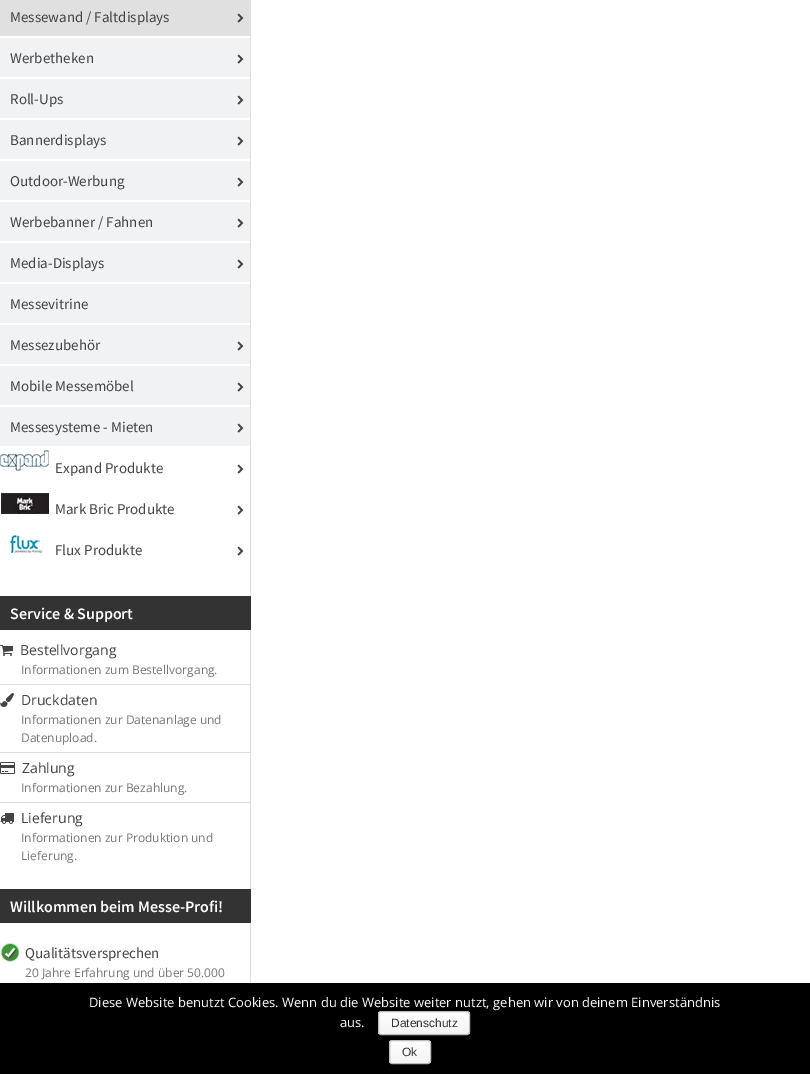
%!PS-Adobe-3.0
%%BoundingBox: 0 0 810 1074
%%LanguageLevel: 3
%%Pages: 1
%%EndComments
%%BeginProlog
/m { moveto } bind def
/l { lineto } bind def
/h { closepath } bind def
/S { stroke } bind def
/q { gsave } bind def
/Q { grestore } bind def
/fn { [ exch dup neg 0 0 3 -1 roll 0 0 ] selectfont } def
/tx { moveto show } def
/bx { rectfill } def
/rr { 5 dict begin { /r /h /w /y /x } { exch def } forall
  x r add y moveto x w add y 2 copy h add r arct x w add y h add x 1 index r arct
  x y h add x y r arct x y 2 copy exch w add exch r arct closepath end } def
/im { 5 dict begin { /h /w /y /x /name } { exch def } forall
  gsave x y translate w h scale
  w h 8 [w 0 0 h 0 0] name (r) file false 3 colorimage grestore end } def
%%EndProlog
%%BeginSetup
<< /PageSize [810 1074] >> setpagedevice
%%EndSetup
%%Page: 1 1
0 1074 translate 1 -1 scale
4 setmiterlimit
1 setgray
0 0 810 1074 bx
0.867 setgray
250 0 1 983 bx
0.878 setgray
0 0 250 36 bx
/SourceSansPro-Regular 15 fn
0.267 setgray
(Messewand / Faltdisplays) 10 22 tx
(image0.raw) 237 13 7 10 im
0.941 0.949 0.957 setrgbcolor
0 38 250 39 bx
0.267 setgray
(Werbetheken) 10 63 tx
(image1.raw) 237 54 7 10 im
0.941 0.949 0.957 setrgbcolor
0 79 250 39 bx
0.267 setgray
(Roll-Ups) 10 104 tx
(image1.raw) 237 95 7 10 im
0.941 0.949 0.957 setrgbcolor
0 120 250 39 bx
0.267 setgray
(Bannerdisplays) 10 145 tx
(image1.raw) 237 136 7 10 im
0.941 0.949 0.957 setrgbcolor
0 161 250 39 bx
0.267 setgray
(Outdoor-Werbung) 10 186 tx
(image1.raw) 237 177 7 10 im
0.941 0.949 0.957 setrgbcolor
0 202 250 39 bx
0.267 setgray
(Werbebanner / Fahnen) 10 227 tx
(image1.raw) 237 218 7 10 im
0.941 0.949 0.957 setrgbcolor
0 243 250 39 bx
0.267 setgray
(Media-Displays) 10 268 tx
(image1.raw) 237 259 7 10 im
0.941 0.949 0.957 setrgbcolor
0 284 250 39 bx
0.267 setgray
(Messevitrine) 10 309 tx
0.941 0.949 0.957 setrgbcolor
0 325 250 39 bx
0.267 setgray
(Messezubehör) 10 350 tx
(image1.raw) 237 341 7 10 im
0.941 0.949 0.957 setrgbcolor
0 366 250 39 bx
0.267 setgray
(Mobile Messemöbel) 10 391 tx
(image1.raw) 237 382 7 10 im
0.941 0.949 0.957 setrgbcolor
0 407 250 39 bx
0.267 setgray
(Messesysteme - Mieten) 10 432 tx
(image1.raw) 237 423 7 10 im
(image2.raw) 0 450 49 21 im
(Expand Produkte) 55 473 tx
(image3.raw) 237 464 7 10 im
(image4.raw) 1 493 48 21 im
(Mark Bric Produkte) 55 514 tx
(image3.raw) 237 505 7 10 im
(image5.raw) 10 535 33 18 im
(Flux Produkte) 55 555 tx
(image3.raw) 237 546 7 10 im
0.2 setgray
0 596 251 34 bx
/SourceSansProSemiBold-SemiBold 16 fn
1 setgray
(Service & Support) 10 619 tx
(image6.raw) 0 645 13 11 im
/OpenSans-Regular 14 fn
0.267 setgray
(Bestellvorgang) 20 655 tx
/OpenSans-Regular 12 fn
0.467 setgray
(Informationen zum Bestellvorgang.) 21 674 tx
0.867 setgray
0 684 250 1 bx
(image7.raw) 0 693 14 14 im
/OpenSans-Regular 14 fn
0.267 setgray
(Druckdaten) 21 705 tx
/OpenSans-Regular 12 fn
0.467 setgray
(Informationen zur Datenanlage und) 21 724 tx
(Datenupload.) 21 742 tx
0.867 setgray
0 752 250 1 bx
(image8.raw) 0 762 15 12 im
/OpenSans-Regular 14 fn
0.267 setgray
(Zahlung) 22 773 tx
/OpenSans-Regular 12 fn
0.467 setgray
(Informationen zur Bezahlung.) 21 792 tx
0.867 setgray
0 802 250 1 bx
(image9.raw) 0 813 14 11 im
/OpenSans-Regular 14 fn
0.267 setgray
(Lieferung) 21 823 tx
/OpenSans-Regular 12 fn
0.467 setgray
(Informationen zur Produktion und) 21 842 tx
(Lieferung.) 21 860 tx
0.2 setgray
0 889 251 34 bx
/SourceSansProSemiBold-SemiBold 16 fn
1 setgray
(Willkommen beim Messe-Profi!) 10 912 tx
(image10.raw) 0 943 20 19 im
/SourceSansPro-Regular 15 fn
0.267 setgray
(Qualitätsversprechen) 25 958 tx
/OpenSans-Regular 12 fn
0.467 setgray
(20 Jahre Erfahrung und über 50.000) 25 977 tx
0 setgray
0 983 810 91 bx
/OpenSans-Regular 13 fn
1 setgray
(Diese Website benutzt Cookies. Wenn du die Website weiter nutzt, gehen wir von deinem Einverständnis) 89 1007 tx
(aus.) 340 1027 tx
q
378 1011 92 24 3 rr clip newpath
q 378 1012 m 470 1012 l 470 1034 l 378 1034 l h clip newpath
<< /ShadingType 2 /ColorSpace /DeviceRGB /Coords [424 1012 424 1034] /Extend [true true] /Function << /FunctionType 2 /Domain [0 1] /C0 [0.996 0.996 0.996] /C1 [0.957 0.957 0.957] /N 1 >> >> shfill Q
Q
0.733 setgray
378.5 1011.5 91 23 2.5 rr S
/LiberationSans-Regular 12 fn
0.2 setgray
(Datenschutz) 391 1027 tx
q
389 1040 42 24 3 rr clip newpath
q 389 1041 m 431 1041 l 431 1063 l 389 1063 l h clip newpath
<< /ShadingType 2 /ColorSpace /DeviceRGB /Coords [410 1041 410 1063] /Extend [true true] /Function << /FunctionType 2 /Domain [0 1] /C0 [0.996 0.996 0.996] /C1 [0.957 0.957 0.957] /N 1 >> >> shfill Q
Q
0.733 setgray
389.5 1040.5 41 23 2.5 rr S
0.2 setgray
(Ok) 402 1056 tx
showpage
%%EOF
